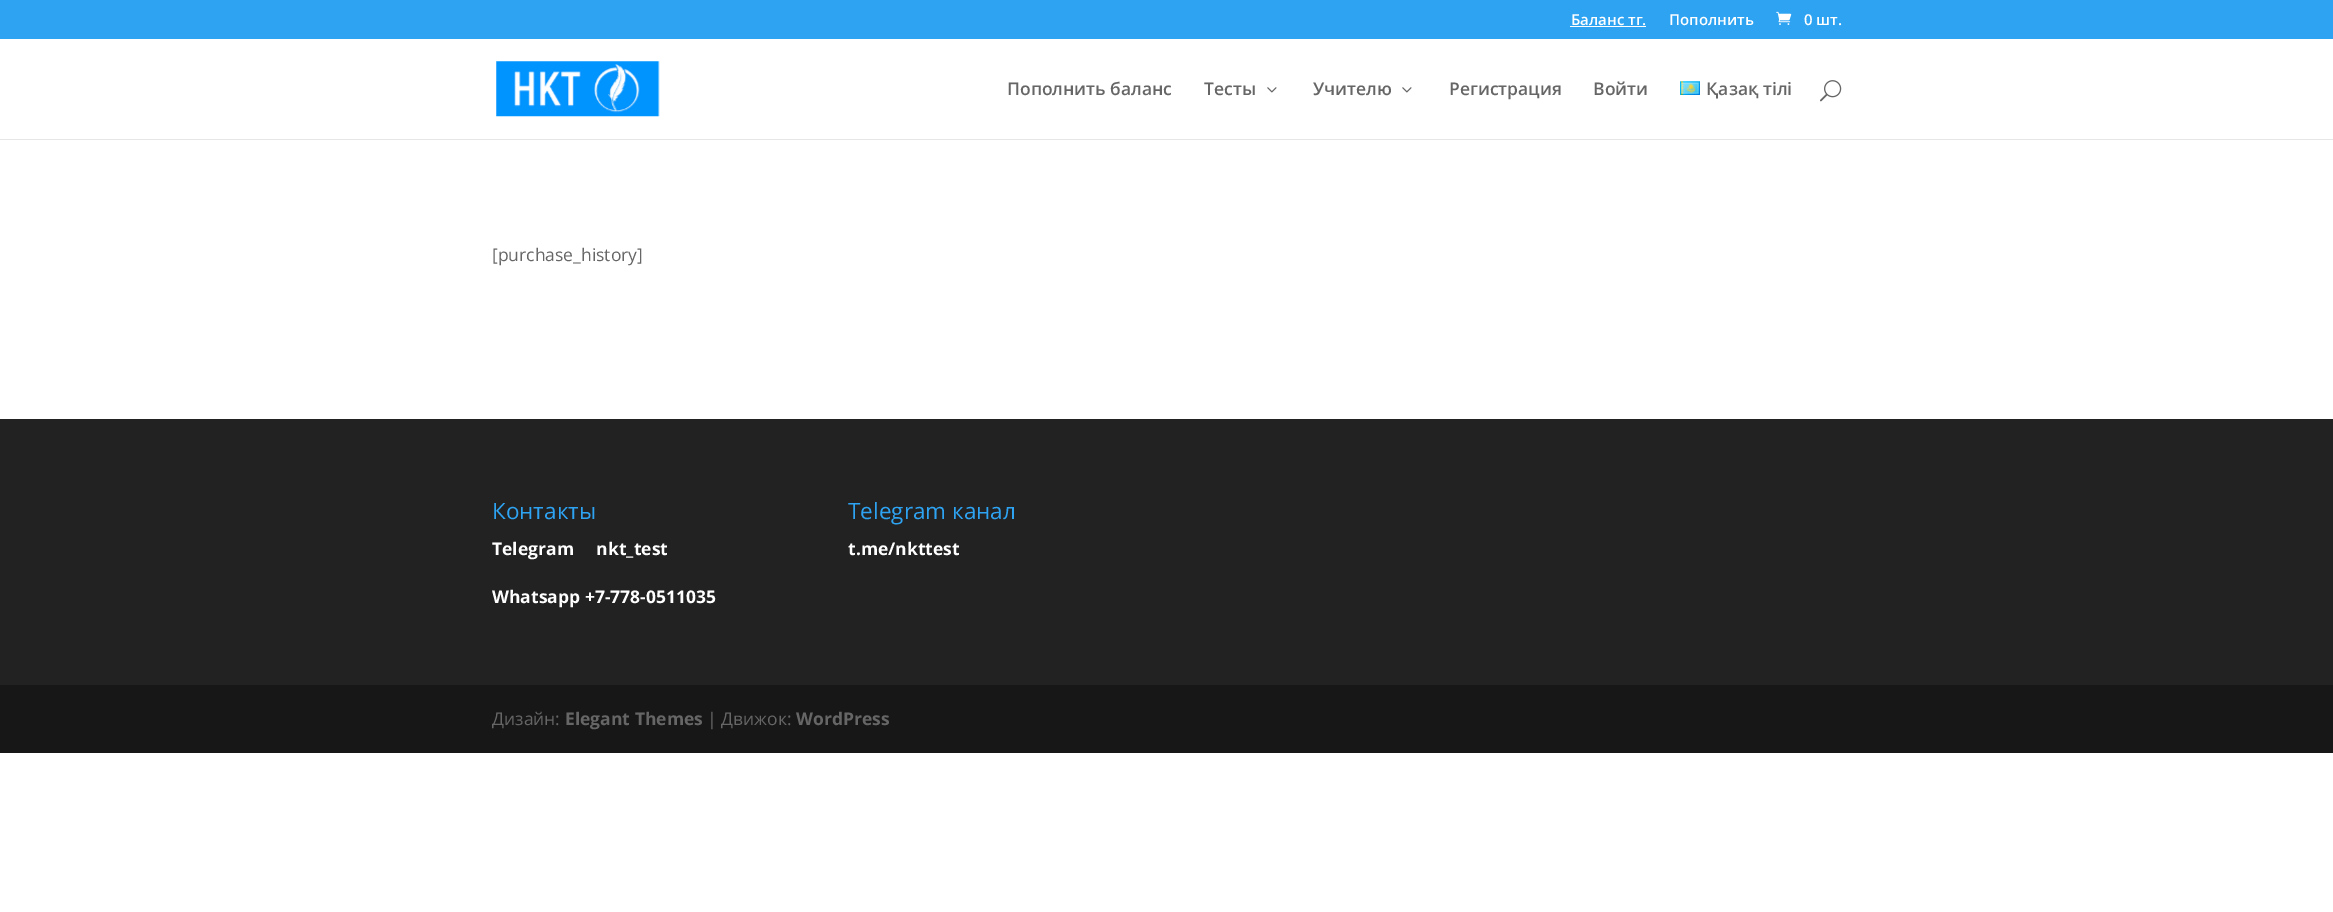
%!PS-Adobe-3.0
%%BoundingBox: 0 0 2333 912
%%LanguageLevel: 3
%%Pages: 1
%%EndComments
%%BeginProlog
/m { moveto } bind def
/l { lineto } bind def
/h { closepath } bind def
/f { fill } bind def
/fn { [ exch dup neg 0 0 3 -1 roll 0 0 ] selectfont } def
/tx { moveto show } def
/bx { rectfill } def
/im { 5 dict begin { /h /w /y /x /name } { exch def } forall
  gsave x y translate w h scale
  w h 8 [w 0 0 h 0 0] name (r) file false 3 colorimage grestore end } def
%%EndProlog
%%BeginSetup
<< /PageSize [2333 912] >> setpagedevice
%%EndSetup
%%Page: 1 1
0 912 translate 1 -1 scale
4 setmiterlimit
1 setgray
0 0 2333 912 bx
0.18 0.639 0.949 setrgbcolor
0 0 2333 39 bx
/OpenSans-SemiBold 15 fn
1 setgray
(Баланс тг.) 1571 25 tx
1570 26 76 1 bx
(Пополнить) 1669 25 tx
(image0.raw) 1776 11 16 14 im
(0 шт.) 1804 25 tx
0.902 setgray
0 139 m 0 140 l 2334 140 l 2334 40 l 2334 139 l h f
(image1.raw) 496 61 164 56 im
/OpenSans-SemiBold 17.5 fn
0.4 setgray
(Пополнить баланс) 1007 95 tx
(Тесты) 1204 95 tx
(image2.raw) 1267 87 10 6 im
(Учителю) 1313 95 tx
(image2.raw) 1402 87 10 6 im
(Регистрация) 1449 95 tx
(Войти) 1593 95 tx
(image3.raw) 1680 81 20 14 im
(Қазақ тілі) 1706 95 tx
(image4.raw) 1820 80 22 22 im
/OpenSans-Regular 17.5 fn
([purchase_history]) 492 261 tx
0.133 setgray
0 419 2333 266 bx
/OpenSans-Regular 22.5 fn
0.18 0.639 0.949 setrgbcolor
(Контакты) 492 519 tx
/OpenSans-Bold 17.5 fn
1 setgray
(Telegram     nkt_test) 492 555 tx
(Whatsapp +7-778-0511035) 492 603 tx
/OpenSans-Regular 22.5 fn
0.18 0.639 0.949 setrgbcolor
(Telegram канал) 848 519 tx
/OpenSans-Bold 17.5 fn
1 setgray
(t.me/nkttest) 848 555 tx
0.09 setgray
0 685 2333 68 bx
/OpenSans-Regular 17.5 fn
0.4 setgray
(Дизайн:) 492 725 tx
/OpenSans-Bold 17.5 fn
(Elegant Themes) 565 725 tx
/OpenSans-Regular 17.5 fn
(| Движок:) 707 725 tx
/OpenSans-Bold 17.5 fn
(WordPress) 796 725 tx
showpage
%%EOF
